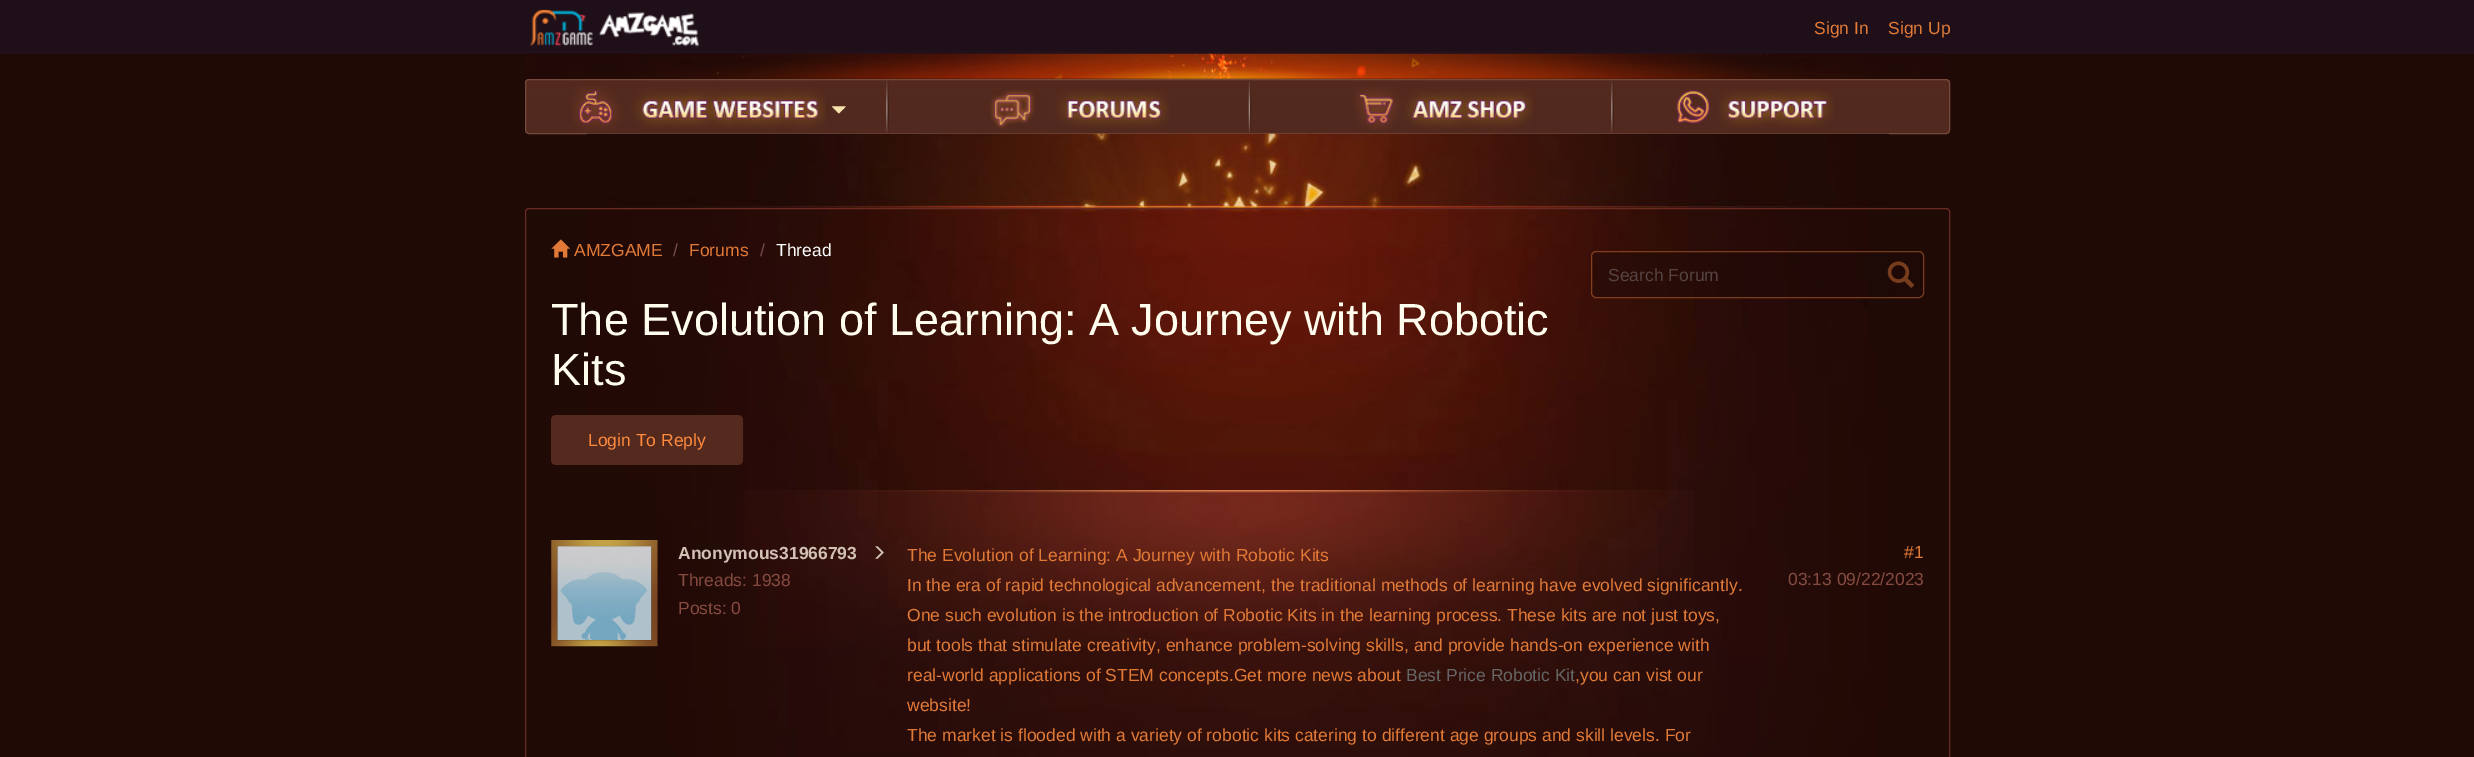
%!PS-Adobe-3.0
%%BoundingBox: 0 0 2474 757
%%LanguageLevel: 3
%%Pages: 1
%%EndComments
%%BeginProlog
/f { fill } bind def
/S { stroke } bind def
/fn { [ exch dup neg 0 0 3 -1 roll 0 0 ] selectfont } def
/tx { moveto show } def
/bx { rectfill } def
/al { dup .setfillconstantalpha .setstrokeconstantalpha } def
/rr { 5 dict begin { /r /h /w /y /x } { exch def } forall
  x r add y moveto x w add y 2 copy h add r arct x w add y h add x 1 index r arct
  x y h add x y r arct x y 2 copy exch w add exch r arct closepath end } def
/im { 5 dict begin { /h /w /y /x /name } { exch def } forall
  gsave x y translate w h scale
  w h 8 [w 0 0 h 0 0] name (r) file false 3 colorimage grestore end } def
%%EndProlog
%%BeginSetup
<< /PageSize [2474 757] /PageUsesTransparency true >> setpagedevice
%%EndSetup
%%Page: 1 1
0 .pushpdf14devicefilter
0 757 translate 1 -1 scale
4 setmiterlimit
0.125 0.039 0.024 setrgbcolor
0 0 2474 757 bx
0.122 0.059 0.098 setrgbcolor
0 0 2474 51 bx
0.133 0.063 0.106 setrgbcolor
0 51 2474 3 bx
(image0.raw) 530 9 169 38 im
/LiberationSans-Regular 17.5 fn
0.886 0.478 0.216 setrgbcolor
(Sign In) 1814 34 tx
(Sign Up) 1888 34 tx
(image1.raw) 525 53 1425 26 im
(image2.raw) 525 80 1425 54 im
0.463 0.29 0.231 setrgbcolor
525.5 79.5 1424 54 3.5 rr S
(image3.raw) 571 85 255 46 im
(image4.raw) 832 106 14 8 im
(image5.raw) 886 80 3 53 im
(image6.raw) 990 90 179 39 im
(image7.raw) 1248 80 4 53 im
(image8.raw) 1354 87 179 44 im
(image5.raw) 1611 80 3 53 im
(image9.raw) 1676 90 158 38 im
(image10.raw) 587 133 1302 624 im
0.412 0.169 0.129 setrgbcolor
525.5 208.5 1424 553 3.5 rr S
(image11.raw) 551 239 19 19 im
0.886 0.478 0.216 setrgbcolor
(AMZGAME) 574 256 tx
0.467 0.302 0.302 setrgbcolor
(/) 673 256 tx
0.886 0.478 0.216 setrgbcolor
(Forums) 689 256 tx
0.467 0.302 0.302 setrgbcolor
(/) 760 256 tx
1 setgray
(Thread) 776 256 tx
0.4 al
0.106 0.031 0.02 setrgbcolor
1591 251 333 47 5 rr f
1 0.541 0.239 setrgbcolor
1591.5 251.5 332 46 4.5 rr S
1 al
0.333 0.267 0.255 setrgbcolor
(Search Forum) 1608 281 tx
(image12.raw) 1887 261 27 27 im
/LiberationSans-Regular 45 fn
1 0.992 0.933 setrgbcolor
(The Evolution of Learning: A Journey with Robotic) 551 335 tx
(Kits) 551 385 tx
0.329 0.161 0.118 setrgbcolor
551 415 192 50 5 rr f
/LiberationSans-Regular 17.5 fn
1 0.541 0.239 setrgbcolor
(Login To Reply) 588 446 tx
(image13.raw) 744 490 950 156 im
(image14.raw) 551 540 107 107 im
(image15.raw) 557 546 95 94 im
/LiberationSans-Bold 17.5 fn
0.827 0.753 0.706 setrgbcolor
(Anonymous31966793) 678 559 tx
(image16.raw) 875 546 9 13 im
/LiberationSans-Regular 17.5 fn
0.522 0.29 0.251 setrgbcolor
(Threads: 1938) 678 586 tx
(Posts: 0) 678 614 tx
0.886 0.478 0.216 setrgbcolor
(The Evolution of Learning: A Journey with Robotic Kits) 907 561 tx
(In the era of rapid technological advancement, the traditional methods of learning have evolved significantly.) 907 591 tx
(One such evolution is the introduction of Robotic Kits in the learning process. These kits are not just toys,) 907 621 tx
(but tools that stimulate creativity, enhance problem-solving skills, and provide hands-on experience with) 907 651 tx
(real-world applications of STEM concepts.Get more news about) 907 681 tx
0.4 setgray
(Best Price Robotic Kit) 1406 681 tx
0.886 0.478 0.216 setrgbcolor
(,you can vist our) 1575 681 tx
(website!) 907 711 tx
(The market is flooded with a variety of robotic kits catering to different age groups and skill levels. For) 907 741 tx
(#1) 1904 558 tx
0.522 0.29 0.251 setrgbcolor
(03:13 09/22/2023) 1788 585 tx
.poppdf14devicefilter showpage
%%EOF
